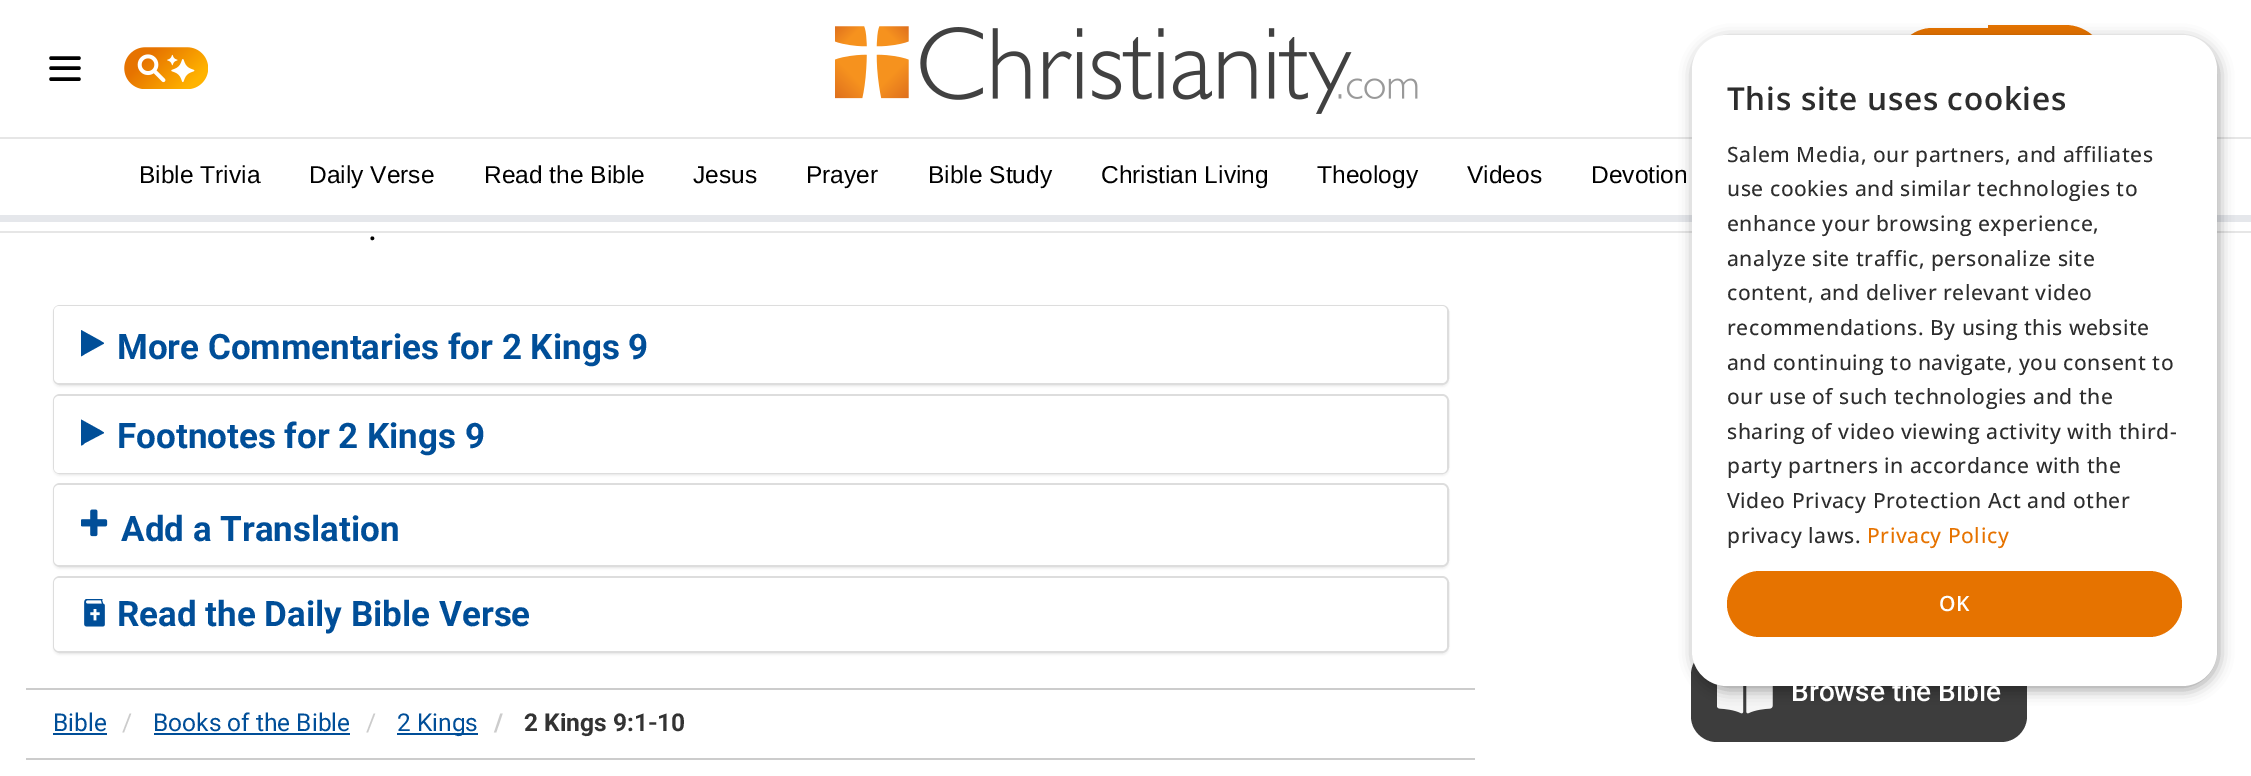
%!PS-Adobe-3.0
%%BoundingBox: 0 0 2251 776
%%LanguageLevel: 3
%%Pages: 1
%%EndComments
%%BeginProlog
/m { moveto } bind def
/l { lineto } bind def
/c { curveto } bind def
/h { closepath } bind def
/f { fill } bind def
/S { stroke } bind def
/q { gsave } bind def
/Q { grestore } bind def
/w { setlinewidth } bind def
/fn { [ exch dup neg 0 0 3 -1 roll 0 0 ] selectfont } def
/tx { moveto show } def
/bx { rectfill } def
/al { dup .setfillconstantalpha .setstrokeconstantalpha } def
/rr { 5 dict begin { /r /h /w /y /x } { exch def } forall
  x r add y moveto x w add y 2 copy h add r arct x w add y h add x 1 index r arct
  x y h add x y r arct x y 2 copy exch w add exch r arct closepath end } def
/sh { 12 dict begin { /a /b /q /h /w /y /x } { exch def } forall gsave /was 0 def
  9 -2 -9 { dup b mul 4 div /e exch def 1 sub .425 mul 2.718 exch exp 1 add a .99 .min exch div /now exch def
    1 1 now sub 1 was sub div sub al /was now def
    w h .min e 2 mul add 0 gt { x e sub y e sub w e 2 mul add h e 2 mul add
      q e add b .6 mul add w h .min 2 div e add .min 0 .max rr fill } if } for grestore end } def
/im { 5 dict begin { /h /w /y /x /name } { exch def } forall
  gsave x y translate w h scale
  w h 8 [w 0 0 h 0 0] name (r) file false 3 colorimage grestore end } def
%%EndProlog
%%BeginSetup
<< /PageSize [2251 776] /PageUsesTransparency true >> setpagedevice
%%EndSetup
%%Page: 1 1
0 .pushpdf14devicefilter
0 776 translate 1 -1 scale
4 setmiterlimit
1 setgray
0 0 2251 776 bx
0.902 setgray
0 231 2251 2 bx
0 137 2251 2 bx
0 setgray
3.5 w
1 setlinecap
1 setlinejoin
51 58 m 79 58 l 51 68 m 79 68 l 51 79 m 79 79 l S
(image0.raw) 124 47 84 42 im
(image1.raw) 835 26 583 88 im
0.902 0.451 0 setrgbcolor
1932.5 28 m 1995 28 l 1995 103 l 1932.5 103 l 1912 103 1895 86 1895 65.5 c 1895 45 1912 28 1932.5 28 c h f
1988 25 m 2065 25 l 2088 25 2107 44 2107 67 c 2107 90 2088 109 2065 109 c 1988 109 l h f
0.898 0.906 0.922 setrgbcolor
0 215 2251 7 bx
/LiberationSans-Regular 24.5 fn
0 setgray
(Bible Trivia) 139 183 tx
(Daily Verse) 309 183 tx
(Read the Bible) 484 183 tx
(Jesus) 693 183 tx
(Prayer) 806 183 tx
(Bible Study) 928 183 tx
(Christian Living) 1101 183 tx
(Theology) 1317 183 tx
(Videos) 1467 183 tx
(Devotion) 1591 183 tx
0.239 setgray
1691 649 336 93 26 rr f
(image4.raw) 1717 684 56 30 im
0 setgray
1694 39 525 651 35 7 0.35 sh
1 setgray
1692 35 525 651 35 rr f
/OpenSans-SemiBold 31.5 fn
0.176 setgray
1727 110 m 0.7 0 (This site uses cookies) ashow
/OpenSans-Medium 21 fn
1727 162 m 0.55 0 (Salem Media, our partners, and affiliates) ashow
1727 196 m 0.55 0 (use cookies and similar technologies to) ashow
1727 231 m 0.55 0 (enhance your browsing experience,) ashow
1727 266 m 0.55 0 (analyze site traffic, personalize site) ashow
1727 300 m 0.55 0 (content, and deliver relevant video) ashow
1727 335 m 0.55 0 (recommendations. By using this website) ashow
1727 370 m 0.55 0 (and continuing to navigate, you consent to) ashow
1727 404 m 0.55 0 (our use of such technologies and the) ashow
1727 439 m 0.55 0 (sharing of video viewing activity with third-) ashow
1727 473 m 0.55 0 (party partners in accordance with the) ashow
1727 508 m 0.55 0 (Video Privacy Protection Act and other) ashow
1727 543 m 0.55 0 (privacy laws.) ashow
0.902 0.451 0 setrgbcolor
1867 543 m 0.55 0 (Privacy Policy) ashow
1727 571 455 66 33 rr f
/OpenSans-SemiBold 21 fn
1 setgray
1939 611 m 0.7 0 (OK) ashow
/Roboto-Regular 35 fn
0 setgray
(.) 368 240 tx
53 306 1396 81 7 1 0.05 sh
0.867 setgray
2 w
0 setlinecap
0 setlinejoin
54 306 1394 78 6 rr S
1 setgray
54 306 1393 77 5 rr f
/Roboto-Bold 35 fn
0 0.306 0.596 setrgbcolor
(More Commentaries for 2 Kings 9) 117 359 tx
q
81 324 28 35 rectclip
104 343.5 m 85 354 l 84.5 354 81.5 357 80.5 356 c 80.5 330.5 l 81 330 l 100 340.5 l 104 343 l h f
Q
0 setgray
53 396 1396 80 7 1 0.05 sh
0.867 setgray
54 395 1394 78 6 rr S
1 setgray
54 396 1393 77 5 rr f
0 0.306 0.596 setrgbcolor
(Footnotes for 2 Kings 9) 117 448 tx
q
81 413 28 35 rectclip
104 433 m 85 443 l 84.5 443.5 81.5 446.5 80.5 445 c 80.5 419.5 l 81 419.5 l 100 430 l 104 432.5 l h f
Q
0 setgray
53 485 1396 84 7 1 0.05 sh
0.867 setgray
54 484 1394 82 6 rr S
1 setgray
54 485 1393 80 5 rr f
(image2.raw) 81 509 27 28 im
0 0.306 0.596 setrgbcolor
(Add a Translation) 121 541 tx
0 setgray
53 578 1396 77 7 1 0.05 sh
0.867 setgray
54 577 1394 75 6 rr S
1 setgray
54 578 1393 73 5 rr f
(image3.raw) 84 599 21 28 im
0 0.306 0.596 setrgbcolor
(Read the Daily Bible Verse) 117 626 tx
0.8 setgray
26 688 1449 2 bx
26 758 1449 2 bx
/Roboto-Regular 24.5 fn
0 0.306 0.596 setrgbcolor
(Bible) 53 731 tx
53 733 54 2 bx
0.8 setgray
(/) 122 731 tx
0 0.306 0.596 setrgbcolor
(Books of the Bible) 153 731 tx
154 733 196 2 bx
0.8 setgray
(/) 366 731 tx
0 0.306 0.596 setrgbcolor
397 733 81 2 bx
(2 Kings) 397 731 tx
/Roboto-Bold 24.5 fn
0.8 setgray
(/) 494 731 tx
0.2 setgray
(2 Kings 9:1-10) 524 731 tx
/Roboto-Medium 28 fn
1 setgray
(Browse the Bible) 1791 701 tx
.poppdf14devicefilter showpage
%%EOF
